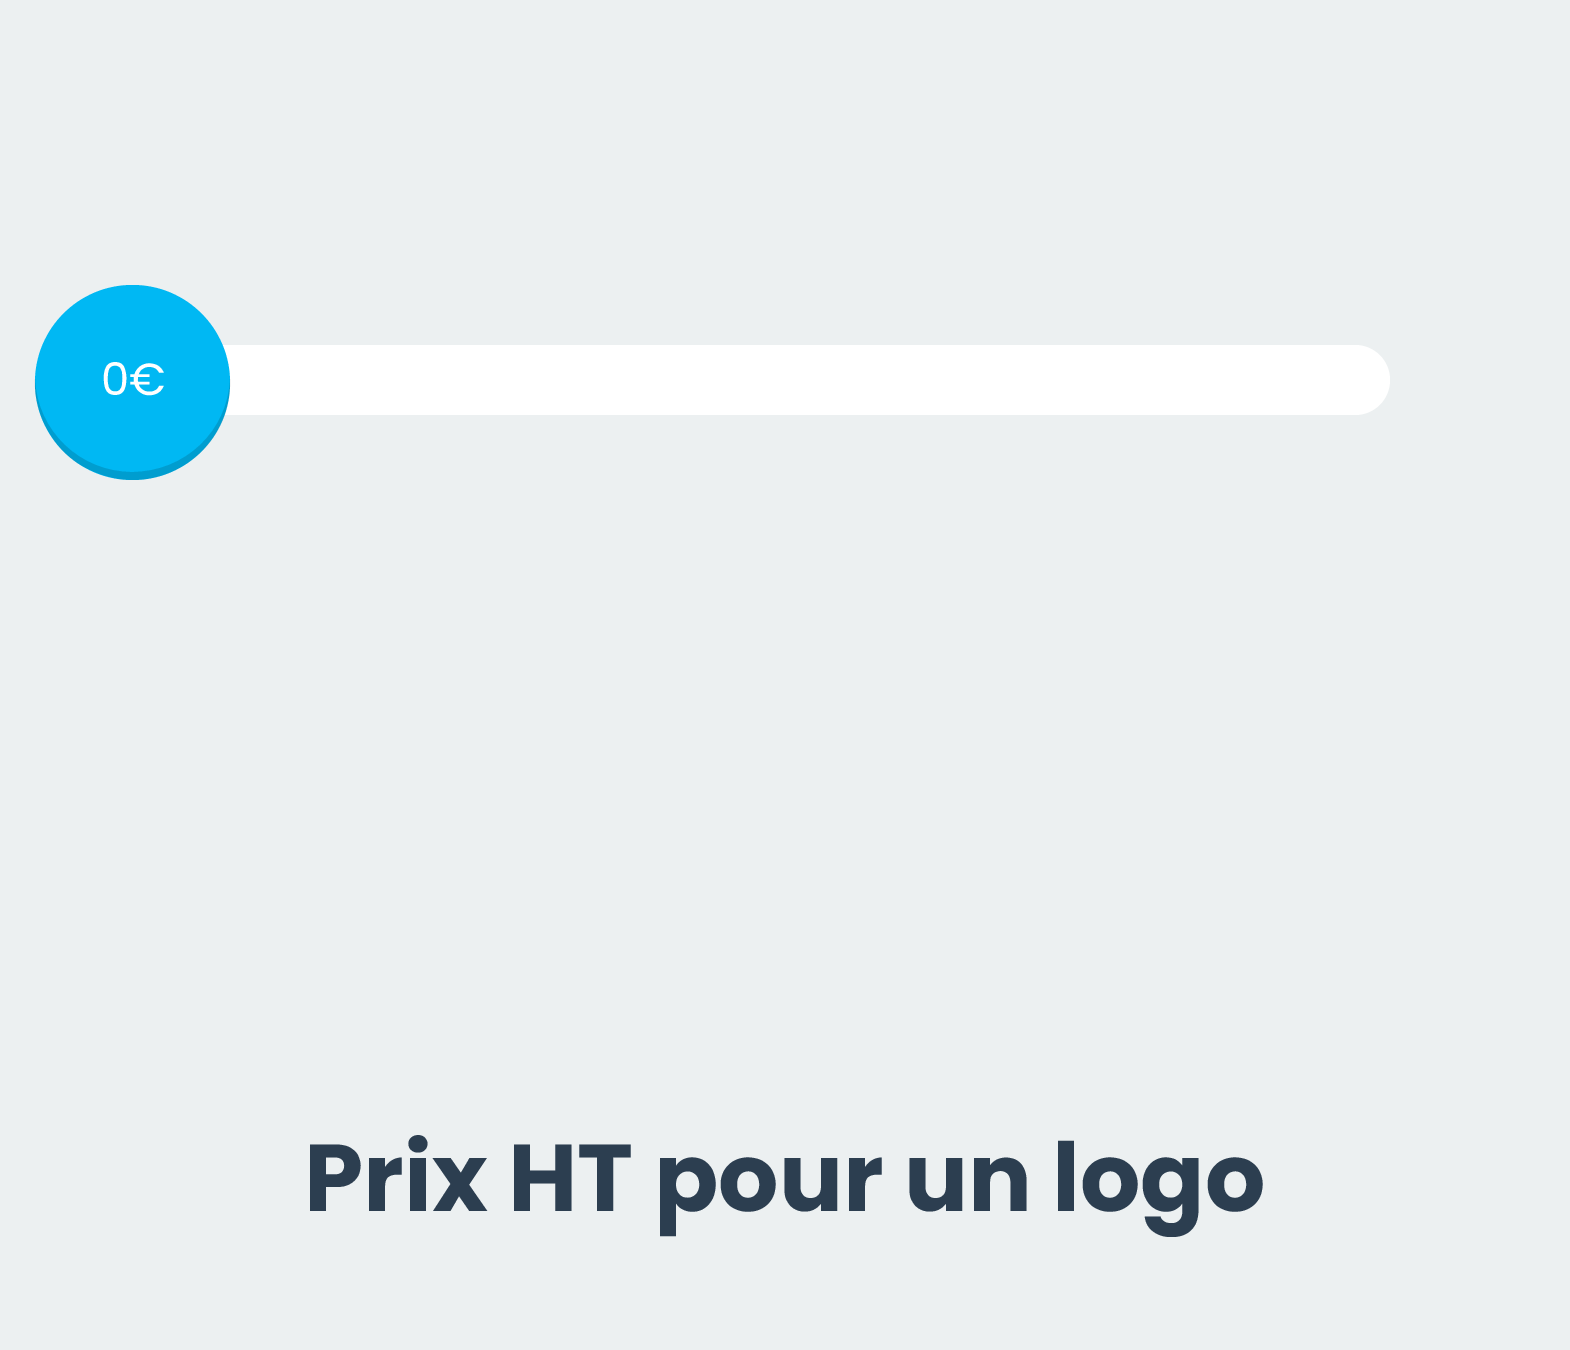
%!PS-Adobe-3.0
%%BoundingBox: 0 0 1570 1350
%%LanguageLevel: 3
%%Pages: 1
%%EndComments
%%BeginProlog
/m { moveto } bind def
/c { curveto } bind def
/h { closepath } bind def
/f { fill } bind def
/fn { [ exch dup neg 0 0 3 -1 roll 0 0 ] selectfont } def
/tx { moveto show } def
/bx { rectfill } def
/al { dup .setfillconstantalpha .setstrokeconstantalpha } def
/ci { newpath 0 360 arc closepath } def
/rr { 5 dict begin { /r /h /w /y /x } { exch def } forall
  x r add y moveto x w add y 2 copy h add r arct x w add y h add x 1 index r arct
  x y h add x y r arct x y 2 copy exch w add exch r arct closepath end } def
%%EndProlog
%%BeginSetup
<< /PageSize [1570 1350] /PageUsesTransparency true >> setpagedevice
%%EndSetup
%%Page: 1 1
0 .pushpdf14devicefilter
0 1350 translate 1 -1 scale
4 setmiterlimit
0.925 0.941 0.945 setrgbcolor
0 0 1570 1350 bx
1 setgray
180 345 1210 70 35 rr f
0 0.722 0.953 setrgbcolor
132.5 382.5 97.5 ci f
0.15 al
0 setgray
35 379 m 34 399 40 420 52 437 c 62 453 77 465 95 472 c 160 500 233 450 230 379 c 228 431 185 472 132 472 c 80 472 37 431 35 379 c h f
/Poppins-Regular 45 fn
1 al
1 setgray
(0€) 101 395 tx
/Poppins-Bold 95 fn
0.173 0.243 0.314 setrgbcolor
(Prix HT pour un logo) 304 1211 tx
.poppdf14devicefilter showpage
%%EOF
